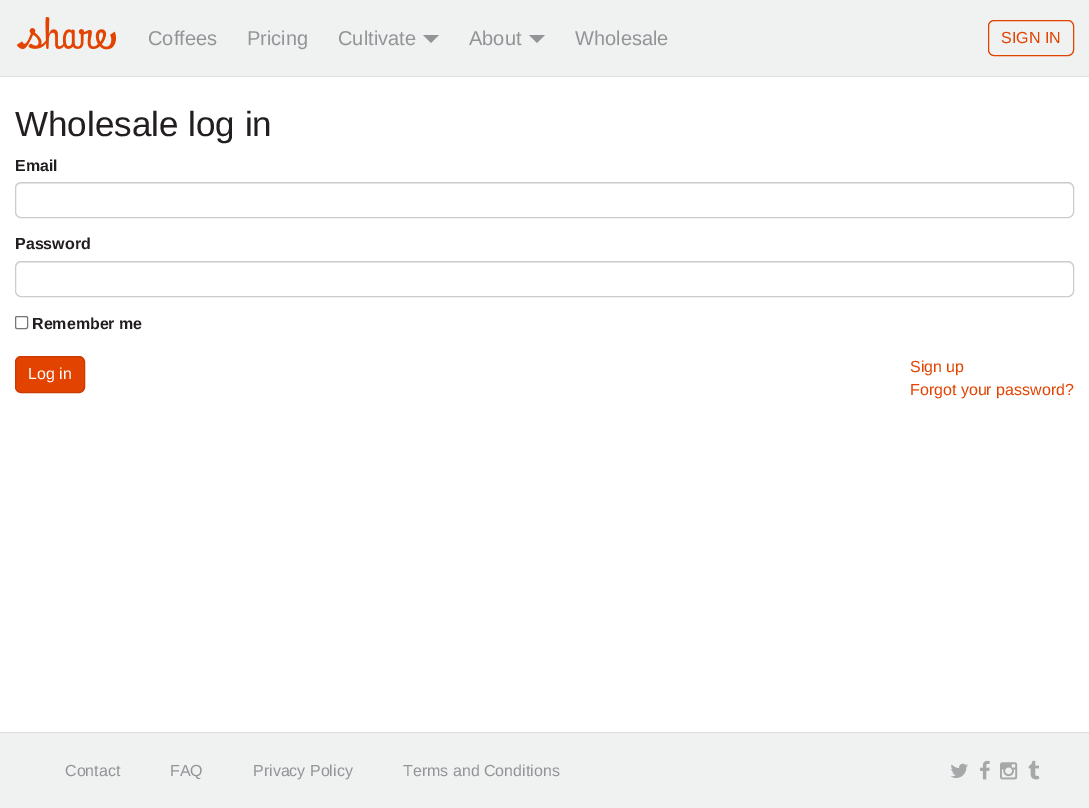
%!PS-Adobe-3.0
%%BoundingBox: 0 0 1089 808
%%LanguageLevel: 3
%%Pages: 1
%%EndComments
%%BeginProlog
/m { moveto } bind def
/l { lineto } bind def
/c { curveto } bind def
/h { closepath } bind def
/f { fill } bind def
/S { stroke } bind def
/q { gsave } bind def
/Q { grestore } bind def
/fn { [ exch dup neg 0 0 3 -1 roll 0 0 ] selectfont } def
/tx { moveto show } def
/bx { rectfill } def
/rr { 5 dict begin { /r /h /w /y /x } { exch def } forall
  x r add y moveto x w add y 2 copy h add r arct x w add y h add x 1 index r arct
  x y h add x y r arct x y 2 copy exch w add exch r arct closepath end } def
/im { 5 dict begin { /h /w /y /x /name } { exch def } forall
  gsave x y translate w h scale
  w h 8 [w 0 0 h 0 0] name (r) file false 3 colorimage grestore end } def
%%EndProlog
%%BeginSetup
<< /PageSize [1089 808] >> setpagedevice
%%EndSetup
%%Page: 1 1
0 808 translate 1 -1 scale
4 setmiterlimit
1 setgray
0 0 1089 808 bx
0.941 0.945 0.945 setrgbcolor
0 0 1089 76 bx
0.875 0.882 0.882 setrgbcolor
0 76 1089 1 bx
(image0.raw) 16 17 100 33 im
/LiberationSans-Regular 20 fn
0.573 0.58 0.592 setrgbcolor
(Coffees) 148 45 tx
(Pricing) 247 45 tx
(Cultivate) 338 45 tx
423 35 m 439 35 l 431 43 l h f
(About) 469 45 tx
529 35 m 545 35 l 537 43 l h f
(Wholesale) 575 45 tx
0.886 0.263 0.004 setrgbcolor
988.5 20.5 85 35 5.5 rr S
/LiberationSans-Regular 16 fn
(SIGN IN) 1001 43 tx
/LiberationSans-Regular 35 fn
0.137 0.122 0.125 setrgbcolor
(Wholesale log in) 15 136 tx
/LiberationSans-Bold 16 fn
(Email) 15 171 tx
0.925 setgray
21 184 m 1068 184 l 1071 184 1073 186 1073 189 c 1073 186 1071 183 1068 183 c 21 183 l 18 183 16 186 16 189 c 16 186 18 184 21 184 c h f
0.8 setgray
15.5 182.5 1058 35 5.5 rr S
0.137 0.122 0.125 setrgbcolor
(Password) 15 249 tx
0.925 setgray
21 263 m 1068 263 l 1071 263 1073 265 1073 268 c 1073 265 1071 262 1068 262 c 21 262 l 18 262 16 265 16 268 c 16 265 18 263 21 263 c h f
0.8 setgray
15.5 261.5 1058 35 5.5 rr S
0.463 setgray
15.5 316.5 12 12 1.5 rr S
0.137 0.122 0.125 setrgbcolor
(Remember me) 32 329 tx
0.886 0.263 0.004 setrgbcolor
15.5 356.5 69 36 5.5 rr q f Q
0.788 0.231 0.004 setrgbcolor
S
/LiberationSans-Regular 16 fn
1 setgray
(Log in) 28 379 tx
0.886 0.263 0.004 setrgbcolor
(Sign up) 910 372 tx
(Forgot your password?) 910 395 tx
0.941 0.945 0.945 setrgbcolor
0 733 1089 75 bx
0.863 setgray
0 732 1089 1 bx
0.573 0.58 0.592 setrgbcolor
(Contact) 65 776 tx
(FAQ) 170 776 tx
(Privacy Policy) 253 776 tx
(Terms and Conditions) 403 776 tx
(image1.raw) 950 763 18 15 im
(image2.raw) 980 760 10 20 im
(image3.raw) 1000 762 18 18 im
(image4.raw) 1028 760 12 20 im
showpage
%%EOF
